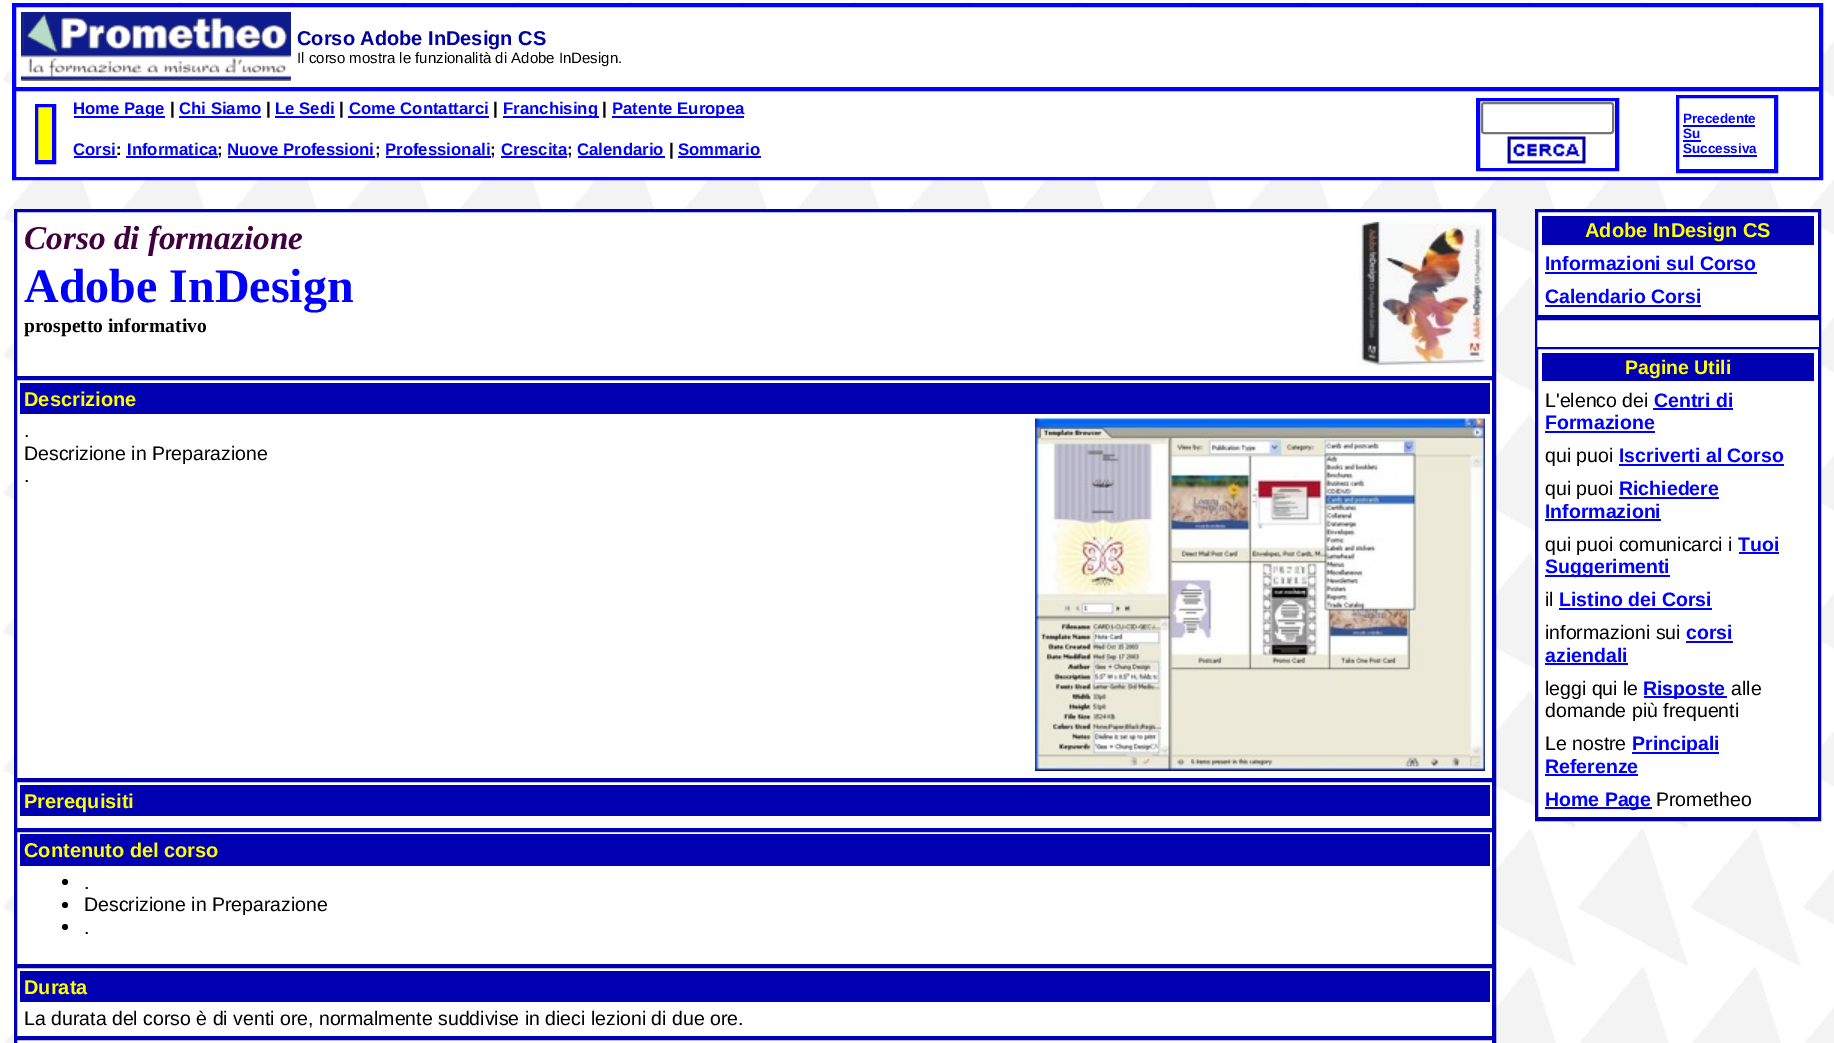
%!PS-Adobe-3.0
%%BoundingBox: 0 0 1834 1043
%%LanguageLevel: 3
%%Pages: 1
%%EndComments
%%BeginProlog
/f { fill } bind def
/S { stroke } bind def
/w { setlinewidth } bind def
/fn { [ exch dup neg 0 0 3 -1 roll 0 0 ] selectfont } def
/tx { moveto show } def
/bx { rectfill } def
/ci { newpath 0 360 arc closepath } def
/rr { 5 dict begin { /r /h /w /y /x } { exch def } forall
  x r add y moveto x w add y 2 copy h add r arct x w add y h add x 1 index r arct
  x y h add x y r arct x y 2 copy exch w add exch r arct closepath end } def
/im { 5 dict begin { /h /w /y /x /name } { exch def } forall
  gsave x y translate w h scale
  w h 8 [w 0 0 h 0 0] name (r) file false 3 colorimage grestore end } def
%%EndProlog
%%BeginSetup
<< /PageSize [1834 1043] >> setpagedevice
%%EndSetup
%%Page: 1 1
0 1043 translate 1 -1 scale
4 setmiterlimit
1 setgray
0 0 1834 1043 bx
(image0.raw) 3 1 1831 1042 im
16 7 1803 170 bx
0 0 1 setrgbcolor
2 w
13 4 1809 175 rectstroke
15 6 1805 82 rectstroke
(image1.raw) 21 12 270 69 im
/LiberationSans-Bold 20 fn
0 0 0.627 setrgbcolor
(Corso Adobe InDesign CS) 297 45 tx
/LiberationSans-Regular 15 fn
0 setgray
(Il corso mostra le funzionalità di Adobe InDesign.) 297 63 tx
0 0 1 setrgbcolor
15 90 1805 88 rectstroke
1 1 0 setrgbcolor
38 107 14 53 bx
0 0 1 setrgbcolor
36 105 19 58 rectstroke
37 106 16 55 rectstroke
74 116 91 2 bx
/LiberationSans-Bold 16.75 fn
(Home Page) 73 114 tx
0 setgray
(|) 170 114 tx
0 0 1 setrgbcolor
(Chi Siamo) 179 114 tx
179 116 82 2 bx
0 setgray
(|) 266 114 tx
0 0 1 setrgbcolor
(Le Sedi) 275 114 tx
275 116 60 2 bx
0 setgray
(|) 339 114 tx
0 0 1 setrgbcolor
(Come Contattarci) 349 114 tx
348 116 141 2 bx
0 setgray
(|) 493 114 tx
0 0 1 setrgbcolor
503 116 96 2 bx
(Franchising) 503 114 tx
0 setgray
(|) 602 114 tx
0 0 1 setrgbcolor
612 116 132 2 bx
(Patente Europea) 612 114 tx
1477 99 141 71 rectstroke
1479 100 137 69 rectstroke
0.463 setgray
1482 103 131 30 2 rr S
(image2.raw) 1507 136 79 28 im
0 0 1 setrgbcolor
1677 96 100 76 rectstroke
1678 97 97 73 rectstroke
/LiberationSans-Bold 13.5 fn
(Precedente) 1683 123 tx
1683 125 72 2 bx
(Su) 1683 138 tx
1683 140 18 2 bx
(Successiva) 1683 153 tx
1683 155 74 2 bx
/LiberationSans-Bold 16.75 fn
(Corsi) 73 155 tx
74 156 43 2 bx
0 setgray
(:) 116 155 tx
0 0 1 setrgbcolor
(Informatica) 127 155 tx
126 156 92 2 bx
0 setgray
(;) 217 155 tx
0 0 1 setrgbcolor
(Nuove Professioni) 227 155 tx
228 156 147 2 bx
0 setgray
(;) 375 155 tx
0 0 1 setrgbcolor
(Professionali) 385 155 tx
386 156 105 2 bx
0 setgray
(;) 490 155 tx
0 0 1 setrgbcolor
(Crescita) 501 155 tx
501 156 66 2 bx
0 setgray
(;) 567 155 tx
0 0 1 setrgbcolor
(Calendario) 577 155 tx
578 156 87 2 bx
0 setgray
(|) 669 155 tx
0 0 1 setrgbcolor
(Sommario) 678 155 tx
678 156 83 2 bx
1 setgray
17 212 1475 831 bx
0 0 0.702 setrgbcolor
15 210 1480 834 rectstroke
16 211 1477 166 rectstroke
/LiberationSerif-BoldItalic 33.25 fn
0.251 0 0.251 setrgbcolor
(Corso di formazione) 24 249 tx
/LiberationSerif-Bold 48 fn
0 0 1 setrgbcolor
(Adobe InDesign) 24 302 tx
/LiberationSerif-Bold 19.5 fn
0 setgray
(prospetto informativo) 24 332 tx
(image3.raw) 1359 222 126 144 im
0 0 0.702 setrgbcolor
16 379 1477 400 rectstroke
20 383 1470 31 bx
/LiberationSans-Bold 20 fn
1 1 0 setrgbcolor
(Descrizione) 24 406 tx
/LiberationSans-Regular 19.5 fn
0 setgray
(.) 24 437 tx
(image4.raw) 1035 418 450 353 im
(Descrizione in Preparazione) 24 460 tx
(.) 24 482 tx
0 0 0.702 setrgbcolor
16 781 1477 48 rectstroke
20 785 1470 31 bx
/LiberationSans-Bold 20 fn
1 1 0 setrgbcolor
(Prerequisiti) 24 808 tx
0 0 0.702 setrgbcolor
16 831 1477 134 rectstroke
20 834 1470 32 bx
1 1 0 setrgbcolor
(Contenuto del corso) 24 857 tx
0 setgray
65 882 3 ci f
/LiberationSans-Regular 19.5 fn
(.) 84 889 tx
65 905 3 ci f
(Descrizione in Preparazione) 84 911 tx
65 927 3 ci f
(.) 84 934 tx
0 0 0.702 setrgbcolor
16 967 1477 70 rectstroke
20 971 1470 31 bx
/LiberationSans-Bold 20 fn
1 1 0 setrgbcolor
(Durata) 24 994 tx
/LiberationSans-Regular 19.5 fn
0 setgray
(La durata del corso è di venti ore, normalmente suddivise in dieci lezioni di due ore.) 24 1025 tx
0 0 0.702 setrgbcolor
16 1039 1477 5 rectstroke
1 setgray
1538 212 280 103 bx
0 0 0.702 setrgbcolor
1536 210 284 107 rectstroke
1537 211 282 105 rectstroke
1542 216 272 29 bx
/LiberationSans-Bold 20 fn
1 1 0 setrgbcolor
(Adobe InDesign CS) 1585 237 tx
/LiberationSans-Bold 19.5 fn
0 0 1 setrgbcolor
(Informazioni sul Corso) 1545 270 tx
1545 272 212 2 bx
(Calendario Corsi) 1545 303 tx
1545 305 156 2 bx
1 setgray
1537 320 282 497 bx
0 0 0.702 setrgbcolor
1536 319 284 501 rectstroke
1537 348 282 470 rectstroke
1542 353 272 28 bx
1 1 0 setrgbcolor
(Pagine Utili) 1625 374 tx
/LiberationSans-Regular 19.5 fn
0 setgray
(L'elenco dei) 1545 407 tx
/LiberationSans-Bold 19.5 fn
0 0 1 setrgbcolor
(Centri di) 1654 407 tx
1653 408 80 2 bx
(Formazione) 1545 429 tx
1545 431 110 2 bx
/LiberationSans-Regular 19.5 fn
0 setgray
(qui puoi) 1545 462 tx
/LiberationSans-Bold 19.5 fn
0 0 1 setrgbcolor
(Iscriverti al Corso) 1619 462 tx
1619 464 165 2 bx
/LiberationSans-Regular 19.5 fn
0 setgray
(qui puoi) 1545 495 tx
/LiberationSans-Bold 19.5 fn
0 0 1 setrgbcolor
(Richiedere) 1619 495 tx
1619 497 100 2 bx
(Informazioni) 1545 518 tx
1545 519 116 2 bx
/LiberationSans-Regular 19.5 fn
0 setgray
(qui puoi comunicarci i) 1545 551 tx
/LiberationSans-Bold 19.5 fn
0 0 1 setrgbcolor
(Tuoi) 1738 551 tx
1739 552 40 2 bx
1545 575 125 2 bx
(Suggerimenti) 1545 573 tx
/LiberationSans-Regular 19.5 fn
0 setgray
(il) 1545 606 tx
/LiberationSans-Bold 19.5 fn
0 0 1 setrgbcolor
(Listino dei Corsi) 1559 606 tx
1559 608 153 2 bx
/LiberationSans-Regular 19.5 fn
0 setgray
(informazioni sui) 1545 639 tx
/LiberationSans-Bold 19.5 fn
0 0 1 setrgbcolor
(corsi) 1686 639 tx
1686 641 47 2 bx
(aziendali) 1545 662 tx
1545 663 83 2 bx
/LiberationSans-Regular 19.5 fn
0 setgray
(leggi qui le) 1545 695 tx
0 0 1 setrgbcolor
1644 696 83 2 bx
/LiberationSans-Bold 19.5 fn
(Risposte) 1643 695 tx
/LiberationSans-Regular 19.5 fn
0 setgray
(alle) 1731 695 tx
(domande più frequenti) 1545 717 tx
(Le nostre) 1545 750 tx
0 0 1 setrgbcolor
1632 752 87 2 bx
/LiberationSans-Bold 19.5 fn
(Principali) 1632 750 tx
(Referenze) 1545 773 tx
1545 774 93 2 bx
1545 807 107 2 bx
(Home Page) 1545 806 tx
/LiberationSans-Regular 19.5 fn
0 setgray
(Prometheo) 1656 806 tx
showpage
%%EOF
